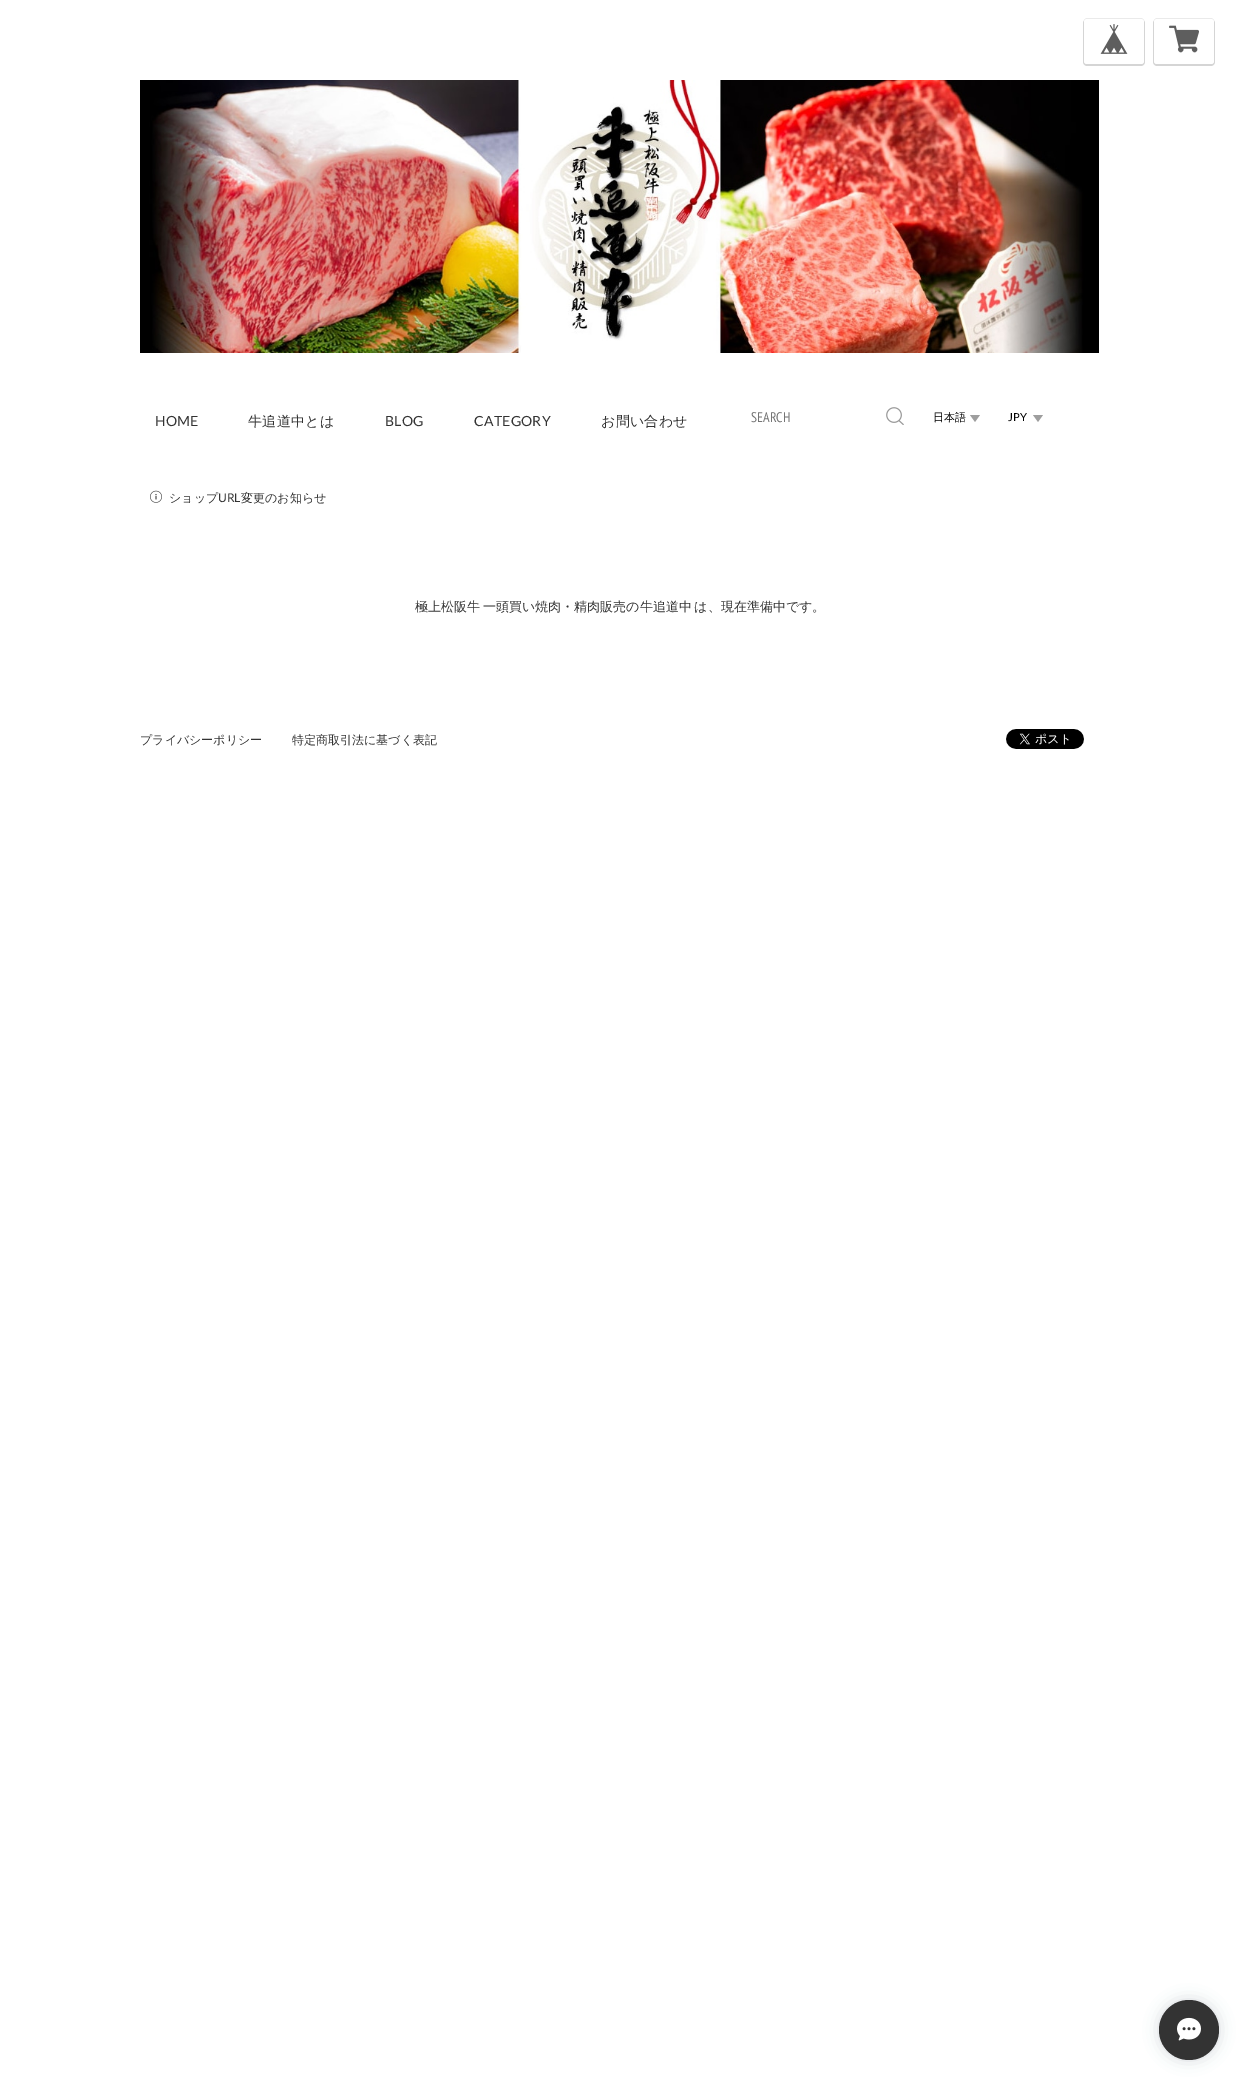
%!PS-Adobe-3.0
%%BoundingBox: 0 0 1239 2080
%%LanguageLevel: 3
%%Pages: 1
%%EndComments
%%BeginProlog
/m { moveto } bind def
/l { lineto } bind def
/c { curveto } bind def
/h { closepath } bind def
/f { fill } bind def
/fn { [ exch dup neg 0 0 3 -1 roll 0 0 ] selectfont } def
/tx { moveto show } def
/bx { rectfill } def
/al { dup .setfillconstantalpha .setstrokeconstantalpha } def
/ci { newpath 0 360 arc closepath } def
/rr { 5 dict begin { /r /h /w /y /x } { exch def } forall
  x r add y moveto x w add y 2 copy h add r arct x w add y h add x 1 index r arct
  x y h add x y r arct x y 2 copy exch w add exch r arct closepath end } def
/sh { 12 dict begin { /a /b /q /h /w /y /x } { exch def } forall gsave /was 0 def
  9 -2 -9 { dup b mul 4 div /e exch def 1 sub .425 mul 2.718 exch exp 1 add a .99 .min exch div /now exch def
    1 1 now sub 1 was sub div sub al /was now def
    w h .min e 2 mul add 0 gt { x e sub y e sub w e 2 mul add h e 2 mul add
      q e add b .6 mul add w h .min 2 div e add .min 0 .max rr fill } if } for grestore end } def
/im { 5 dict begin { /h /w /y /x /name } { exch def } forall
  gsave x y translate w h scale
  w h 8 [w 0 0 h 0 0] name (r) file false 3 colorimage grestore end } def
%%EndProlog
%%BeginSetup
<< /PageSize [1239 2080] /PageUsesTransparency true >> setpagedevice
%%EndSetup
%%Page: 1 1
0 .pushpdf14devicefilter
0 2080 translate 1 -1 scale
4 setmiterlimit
1 setgray
0 0 1239 2080 bx
0.918 setgray
1087 18 m 1085 18 1084 20 1084 22 c 1084 20 1085 19 1087 19 c 1141 19 l 1143 19 1144 20 1144 22 c 1144 20 1143 18 1141 18 c h f
0.835 setgray
1087 19 m 1085 19 1083 21 1083 23 c 1083 62 l 1083 64 1085 66 1087 66 c 1141 66 l 1143 66 1145 64 1145 62 c 1145 23 l 1145 21 1143 19 1141 19 c 1143 19 1144 20 1144 22 c 1144 61 l 1144 63 1143 64 1141 64 c 1087 64 l 1085 64 1084 63 1084 61 c 1084 22 l 1084 20 1085 19 1087 19 c h f
1 setgray
1084 19 60 45 3 rr f
(image0.raw) 1100 24 28 30 im
0.918 setgray
1157 18 m 1155 18 1154 20 1154 22 c 1154 20 1155 19 1157 19 c 1211 19 l 1213 19 1214 20 1214 22 c 1214 20 1213 18 1211 18 c h f
0.835 setgray
1157 19 m 1155 19 1153 21 1153 23 c 1153 62 l 1153 64 1155 66 1157 66 c 1211 66 l 1213 66 1215 64 1215 62 c 1215 23 l 1215 21 1213 19 1211 19 c 1213 19 1214 20 1214 22 c 1214 61 l 1214 63 1213 64 1211 64 c 1157 64 l 1155 64 1154 63 1154 61 c 1154 22 l 1154 20 1155 19 1157 19 c h f
1 setgray
1154 19 60 45 3 rr f
(image1.raw) 1169 25 30 28 im
(image2.raw) 140 80 959 273 im
/Lato-Regular 14 fn
0.2 setgray
155 426 m 0.25 0 (HOME) ashow
/WenQuanYiZenHei-Medium 14 fn
248 426 m 0.25 0 (牛追道中とは) ashow
/Lato-Regular 14 fn
385 426 m 0.25 0 (BLOG) ashow
474 426 m 0.25 0 (CATEGORY) ashow
/WenQuanYiZenHei-Medium 14 fn
601 426 m 0.25 0 (お問い合わせ) ashow
/PTSansNarrow-Regular 14 fn
0.459 setgray
(SEARCH) 751 422 tx
(image3.raw) 886 407 18 18 im
/WenQuanYiZenHei-Medium 11 fn
0 setgray
(日本語) 933 421 tx
(image4.raw) 970 415 10 7 im
/Lato-Regular 11 fn
(JPY) 1008 421 tx
(image4.raw) 1033 415 10 7 im
(image5.raw) 150 490 12 13 im
/WenQuanYiZenHei-Medium 12 fn
0.2 setgray
(ショップ) 169 502 tx
/Lato-Regular 12 fn
(URL) 218 502 tx
/WenQuanYiZenHei-Medium 12 fn
(変更のお知らせ) 241 502 tx
/WenQuanYiZenHei-Medium 13 fn
415 611 m -1 0 32 (極上松阪牛 一頭買い焼肉・精肉販売の牛追道中 は、現在準備中です。) widthshow
/WenQuanYiZenHei-Medium 12 fn
(プライバシーポリシー) 140 744 tx
(特定商取引法に基づく表記) 292 744 tx
(image6.raw) 1006 729 78 20 im
0.2 0.259 0.345 setrgbcolor
1159 2000 60 60 30 7.5 0.2 sh
0.2 setgray
1189 2030 30 ci f
(image7.raw) 1177 2017 24 24 im
.poppdf14devicefilter showpage
%%EOF
